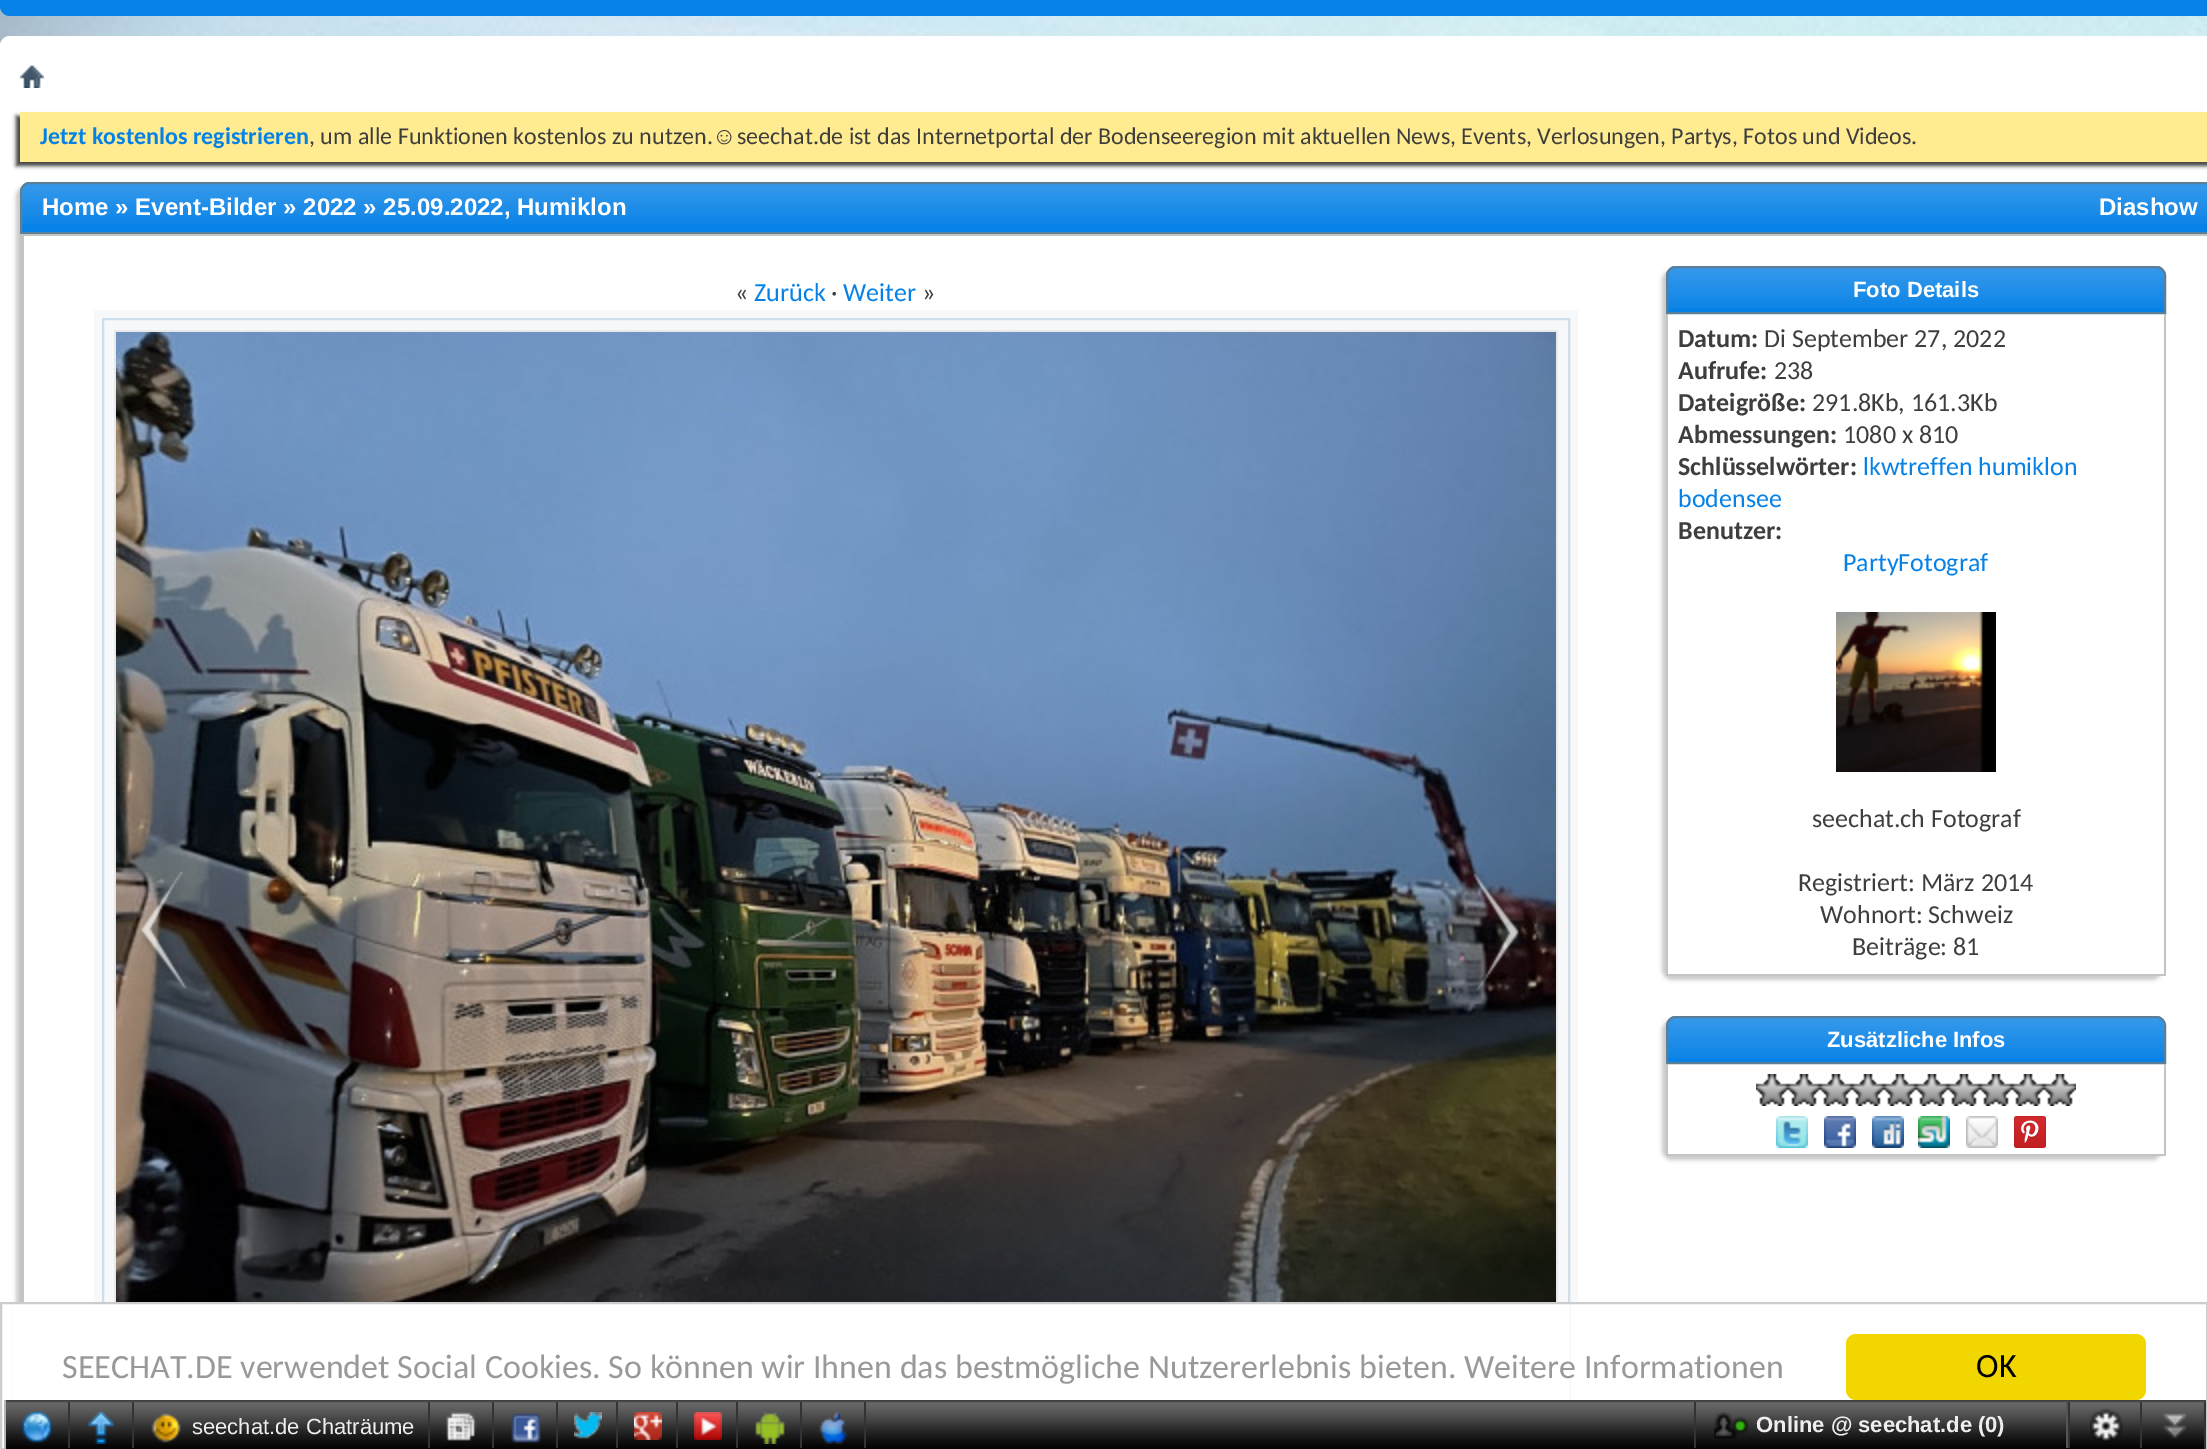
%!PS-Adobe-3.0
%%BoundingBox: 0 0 2207 1449
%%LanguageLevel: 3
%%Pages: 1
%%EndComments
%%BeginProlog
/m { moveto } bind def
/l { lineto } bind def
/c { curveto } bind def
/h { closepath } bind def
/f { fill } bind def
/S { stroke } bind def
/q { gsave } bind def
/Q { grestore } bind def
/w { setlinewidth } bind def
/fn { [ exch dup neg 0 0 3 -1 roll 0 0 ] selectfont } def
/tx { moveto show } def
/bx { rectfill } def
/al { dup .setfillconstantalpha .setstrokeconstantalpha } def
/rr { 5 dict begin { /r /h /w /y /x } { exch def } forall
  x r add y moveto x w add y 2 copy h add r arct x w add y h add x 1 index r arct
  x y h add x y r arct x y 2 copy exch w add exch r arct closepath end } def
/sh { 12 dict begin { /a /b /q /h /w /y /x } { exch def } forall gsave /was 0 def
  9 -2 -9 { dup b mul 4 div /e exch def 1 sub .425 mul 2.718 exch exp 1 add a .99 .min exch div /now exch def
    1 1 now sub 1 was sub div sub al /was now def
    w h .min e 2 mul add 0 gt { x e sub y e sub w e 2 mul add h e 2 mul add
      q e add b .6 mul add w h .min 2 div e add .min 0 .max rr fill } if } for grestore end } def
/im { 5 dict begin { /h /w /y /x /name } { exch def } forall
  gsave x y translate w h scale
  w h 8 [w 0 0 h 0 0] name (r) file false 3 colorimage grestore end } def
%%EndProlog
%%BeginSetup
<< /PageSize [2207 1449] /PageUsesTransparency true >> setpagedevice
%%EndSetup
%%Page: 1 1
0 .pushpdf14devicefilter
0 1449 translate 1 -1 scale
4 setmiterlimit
1 setgray
0 0 2207 1449 bx
(image0.raw) 0 6 2207 40 im
0.024 0.506 0.902 setrgbcolor
0 -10 m 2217 -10 l 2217 6 l 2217 11.5 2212.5 16 2207 16 c 10 16 l 4.5 16 0 11.5 0 6 c h f
1 setgray
0 36 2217 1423 10 rr f
(image1.raw) 20 65 24 23 im
0.243 setgray
16 116 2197 50 0 2 1 sh
1 0.922 0.565 setrgbcolor
20 112 2187 50 bx
/Carlito-Bold 24 fn
0.024 0.506 0.902 setrgbcolor
(Jetzt kostenlos registrieren) 40 144 tx
/Carlito-Regular 24 fn
0.243 setgray
(, um alle Funktionen kostenlos zu nutzen.) 309 144 tx
/LiberationSans-Regular 24 fn
(☺) 712 144 tx
/Carlito-Regular 24 fn
(seechat.de ist das Internetportal der Bodenseeregion mit aktuellen News, Events, Verlosungen, Partys, Fotos und Videos.) 737 144 tx
q
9 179 m 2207 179 l 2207 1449 l 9 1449 l h 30 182 m 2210 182 l 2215.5 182 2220 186.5 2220 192 c 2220 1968 l 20 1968 l 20 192 l 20 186.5 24.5 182 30 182 c h eoclip newpath
0.784 setgray
16 186 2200 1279 10 2 1 sh
Q
0.024 0.506 0.902 setrgbcolor
30 182 m 2207 182 l 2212.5 182 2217 186.5 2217 192 c 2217 234 l 20 234 l 20 192 l 20 186.5 24.5 182 30 182 c h f
(image2.raw) 20 184 2187 40 im
0.353 0.498 0.592 setrgbcolor
2 w
30 183 m 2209 183 l 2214 183 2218 187 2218 192 c 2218 233 l 21 233 l 21 192 l 21 187 25 183 30 183 c h S
/LiberationSans-Bold 24 fn
1 setgray
(Home » Event-Bilder » 2022 » 25.09.2022, Humiklon) 42 215 tx
(Diashow) 2099 215 tx
0.769 setgray
20 234 2 1068 bx
22 234 2185 2 bx
22 234 2 1068 bx
/Carlito-Regular 26 fn
0.243 setgray
(«) 735 301 tx
0.024 0.506 0.902 setrgbcolor
(Zurück) 754 301 tx
0.243 setgray
(·) 831 301 tx
0.024 0.506 0.902 setrgbcolor
(Weiter) 843 301 tx
0.243 setgray
(») 922 301 tx
0.914 setgray
114 330 1444 972 bx
0.965 0.973 0.976 setrgbcolor
114 310 1444 20 bx
1558 310 20 992 bx
94 310 20 992 bx
0.808 0.875 0.922 setrgbcolor
103 319 1466 1106 rectstroke
(image3.raw) 116 332 1440 970 im
(image4.raw) 141 872 47 117 im
(image5.raw) 1473 872 46 119 im
q
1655 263 m 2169 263 l 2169 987 l 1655 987 l h 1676 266 m 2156 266 l 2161.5 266 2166 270.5 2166 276 c 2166 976 l 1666 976 l 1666 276 l 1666 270.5 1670.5 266 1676 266 c h eoclip newpath
0.784 setgray
1662 270 500 710 10 2 1 sh
Q
0.024 0.506 0.902 setrgbcolor
1676 266 m 2156 266 l 2161.5 266 2166 270.5 2166 276 c 2166 314 l 1666 314 l 1666 276 l 1666 270.5 1670.5 266 1676 266 c h f
(image6.raw) 1666 268 500 40 im
0.353 0.498 0.592 setrgbcolor
1676 267 m 2156 267 l 2161 267 2165 271 2165 276 c 2165 313 l 1667 313 l 1667 276 l 1667 271 1671 267 1676 267 c h S
/LiberationSans-Bold 22 fn
1 setgray
(Foto Details) 1853 297 tx
0.769 setgray
2164 314 2 662 bx
1666 974 500 2 bx
1666 314 2 662 bx
/Carlito-Bold 26 fn
0.243 setgray
(Datum:) 1678 347 tx
/Carlito-Regular 26 fn
(Di September 27, 2022) 1764 347 tx
/Carlito-Bold 26 fn
(Aufrufe:) 1678 379 tx
/Carlito-Regular 26 fn
(238) 1774 379 tx
/Carlito-Bold 26 fn
(Dateigröße:) 1678 411 tx
/Carlito-Regular 26 fn
(291.8Kb, 161.3Kb) 1812 411 tx
/Carlito-Bold 26 fn
(Abmessungen:) 1678 443 tx
/Carlito-Regular 26 fn
(1080 x 810) 1843 443 tx
/Carlito-Bold 26 fn
(Schlüsselwörter:) 1678 475 tx
/Carlito-Regular 26 fn
0.024 0.506 0.902 setrgbcolor
(lkwtreffen humiklon) 1863 475 tx
(bodensee) 1678 507 tx
/Carlito-Bold 26 fn
0.243 setgray
(Benutzer:) 1678 539 tx
/Carlito-Regular 26 fn
0.024 0.506 0.902 setrgbcolor
(PartyFotograf) 1843 571 tx
(image7.raw) 1836 612 160 160 im
0.243 setgray
(seechat.ch Fotograf) 1812 827 tx
(Registriert: März 2014) 1798 891 tx
(Wohnort: Schweiz) 1820 923 tx
(Beiträge: 81) 1852 955 tx
q
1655 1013 m 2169 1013 l 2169 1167 l 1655 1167 l h 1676 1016 m 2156 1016 l 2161.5 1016 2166 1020.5 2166 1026 c 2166 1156 l 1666 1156 l 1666 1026 l 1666 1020.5 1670.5 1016 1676 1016 c h eoclip newpath
0.784 setgray
1662 1020 500 140 10 2 1 sh
Q
0.024 0.506 0.902 setrgbcolor
1676 1016 m 2156 1016 l 2161.5 1016 2166 1020.5 2166 1026 c 2166 1064 l 1666 1064 l 1666 1026 l 1666 1020.5 1670.5 1016 1676 1016 c h f
(image6.raw) 1666 1018 500 40 im
0.353 0.498 0.592 setrgbcolor
1676 1017 m 2156 1017 l 2161 1017 2165 1021 2165 1026 c 2165 1063 l 1667 1063 l 1667 1026 l 1667 1021 1671 1017 1676 1017 c h S
/LiberationSans-Bold 22 fn
1 setgray
(Zusätzliche Infos) 1827 1047 tx
0.769 setgray
2164 1064 2 92 bx
1666 1154 500 2 bx
1666 1064 2 92 bx
(image8.raw) 1756 1074 32 32 im
(image8.raw) 1788 1074 32 32 im
(image8.raw) 1820 1074 32 32 im
(image8.raw) 1852 1074 32 32 im
(image8.raw) 1884 1074 32 32 im
(image8.raw) 1916 1074 32 32 im
(image8.raw) 1948 1074 32 32 im
(image8.raw) 1980 1074 32 32 im
(image8.raw) 2012 1074 32 32 im
(image8.raw) 2044 1074 32 32 im
(image9.raw) 1776 1116 32 32 im
(image10.raw) 1824 1116 32 32 im
(image11.raw) 1872 1116 32 32 im
(image12.raw) 1918 1116 32 32 im
(image13.raw) 1966 1116 32 32 im
(image9.raw) 2014 1116 32 32 im
(image14.raw) 2014 1116 32 32 im
1 setgray
13 1304 1557 144 bx
0.8 setgray
1 1303 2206 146 rectstroke
/Carlito-Regular 34 fn
0.6 setgray
(SEECHAT.DE verwendet Social Cookies. So können wir Ihnen das bestmögliche Nutzererlebnis bieten. Weitere Informationen) 62 1378 tx
0.945 0.839 0 setrgbcolor
1846 1334 300 66 10 rr f
0 setgray
(OK) 1976 1377 tx
(image15.raw) 6 1400 2200 49 im
0.71 setgray
4 1400 2 49 bx
0.2 setgray
68 1402 2 46 bx
(image16.raw) 22 1412 31 31 im
132 1402 2 46 bx
(image17.raw) 87 1412 28 32 im
428 1402 2 46 bx
(image18.raw) 151 1413 30 30 im
/LiberationSans-Regular 22 fn
0.933 setgray
(seechat.de Chaträume) 192 1434 tx
0.2 setgray
492 1402 2 46 bx
(image19.raw) 446 1412 31 29 im
556 1402 2 46 bx
(image20.raw) 511 1413 30 30 im
616 1402 2 46 bx
(image21.raw) 574 1412 28 27 im
676 1402 2 46 bx
(image22.raw) 634 1412 28 28 im
736 1402 2 46 bx
(image23.raw) 694 1412 28 28 im
800 1402 2 46 bx
(image24.raw) 755 1412 30 32 im
864 1402 2 46 bx
(image25.raw) 819 1412 29 32 im
0.333 setgray
2066 1402 2 46 bx
0.2 setgray
1694 1402 2 46 bx
(image26.raw) 1714 1412 35 27 im
/LiberationSans-Bold 22 fn
0.933 setgray
(Online @ seechat.de \(0\)) 1756 1432 tx
(image27.raw) 2090 1408 33 34 im
0.2 setgray
2140 1402 2 46 bx
2068 1402 2 46 bx
(image28.raw) 2163 1413 24 26 im
2204 1402 2 47 bx
.poppdf14devicefilter showpage
%%EOF
